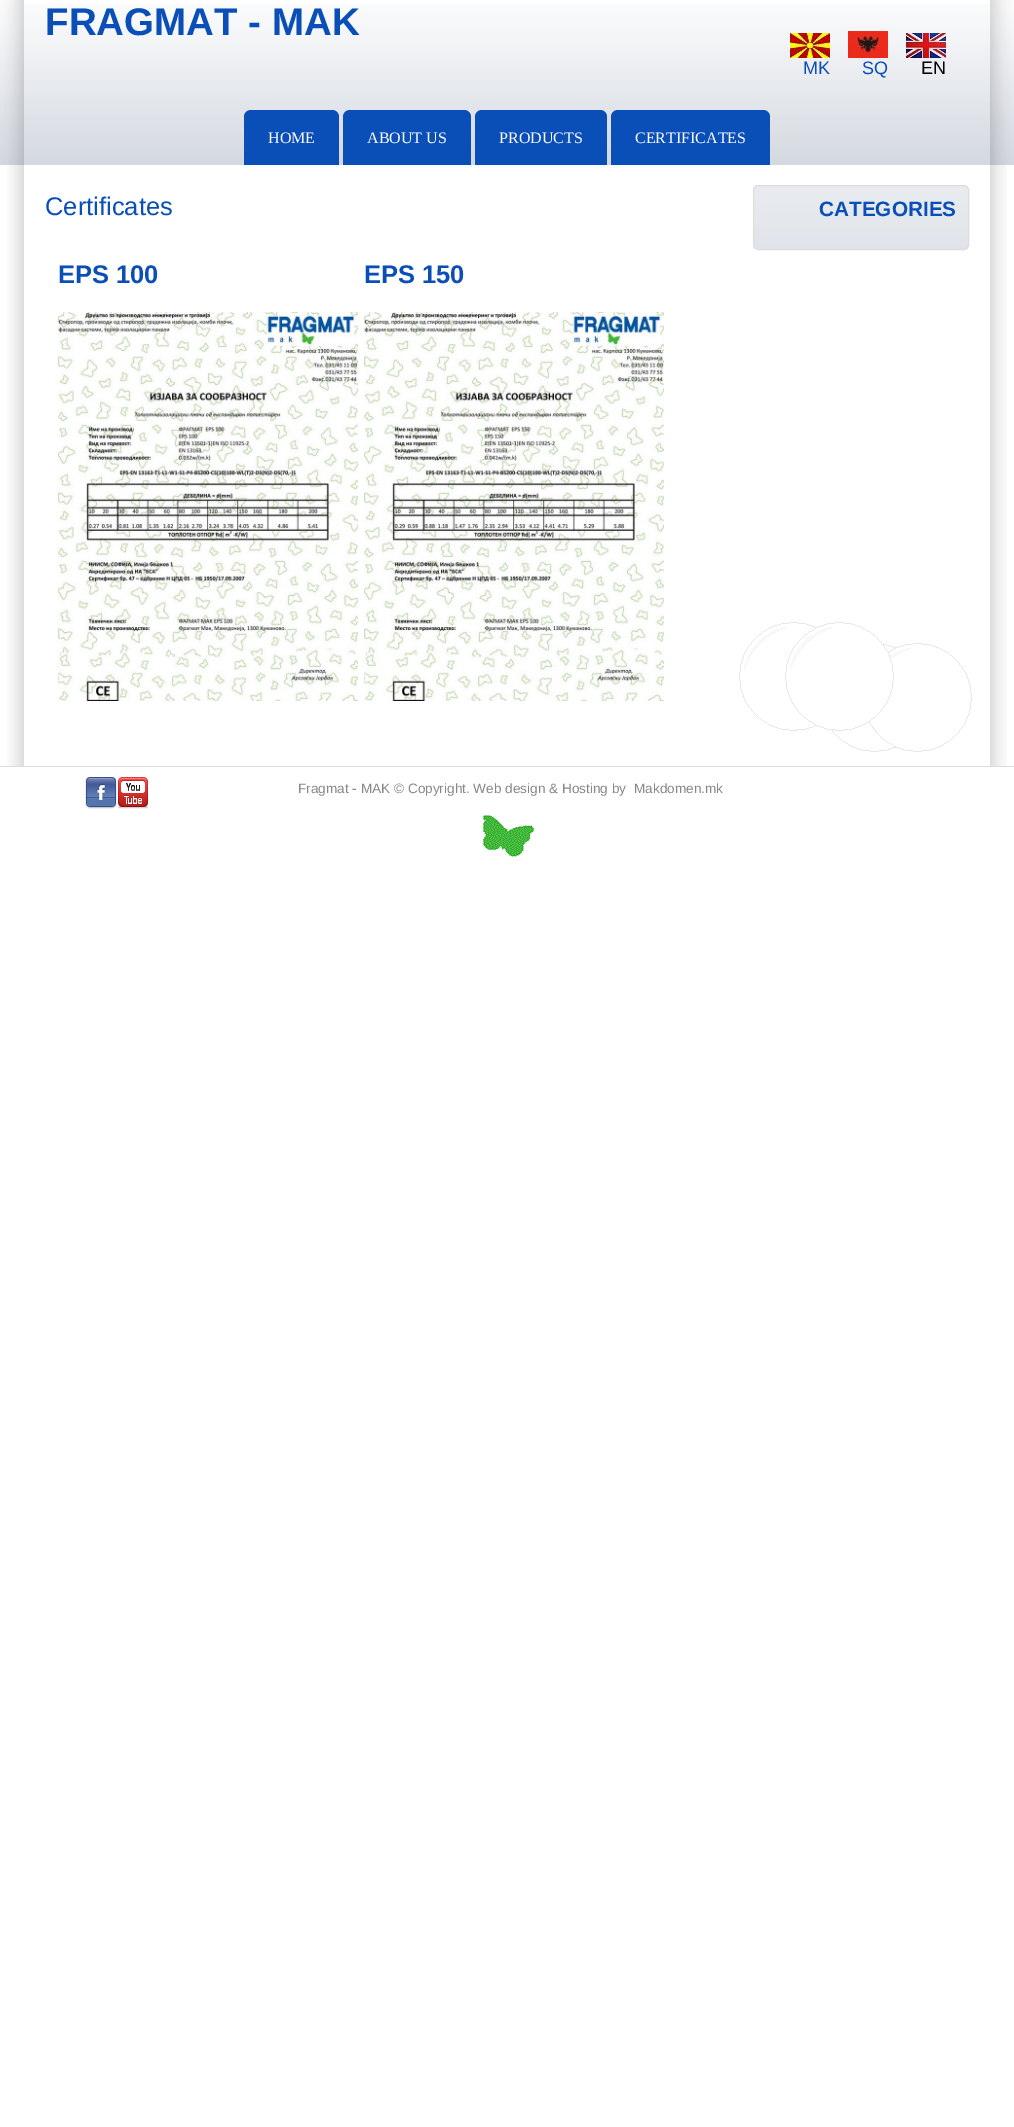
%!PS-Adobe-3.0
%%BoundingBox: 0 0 1014 2127
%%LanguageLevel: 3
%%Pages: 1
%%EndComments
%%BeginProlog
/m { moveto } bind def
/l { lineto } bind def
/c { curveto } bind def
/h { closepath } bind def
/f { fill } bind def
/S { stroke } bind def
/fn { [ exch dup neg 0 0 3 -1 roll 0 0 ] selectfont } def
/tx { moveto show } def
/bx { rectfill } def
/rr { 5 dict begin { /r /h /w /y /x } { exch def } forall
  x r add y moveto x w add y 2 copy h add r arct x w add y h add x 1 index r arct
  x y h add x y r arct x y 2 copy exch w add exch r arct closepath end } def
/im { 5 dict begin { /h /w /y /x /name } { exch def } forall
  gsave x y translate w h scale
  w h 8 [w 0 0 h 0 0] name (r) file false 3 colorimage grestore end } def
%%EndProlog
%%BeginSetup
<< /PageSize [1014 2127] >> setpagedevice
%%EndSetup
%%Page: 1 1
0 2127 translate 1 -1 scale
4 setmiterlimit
1 setgray
0 0 1014 2127 bx
(image0.raw) 24 4 966 161 im
(image1.raw) 0 0 24 165 im
(image2.raw) 990 0 24 165 im
/LiberationSans-Bold 38.5 fn
0.039 0.306 0.722 setrgbcolor
(FRAGMAT - MAK) 45 35 tx
(image3.raw) 790 33 40 25 im
/LiberationSans-Regular 18 fn
(MK) 803 74 tx
(image4.raw) 848 31 40 27 im
(SQ) 862 74 tx
(image5.raw) 906 33 40 25 im
0 setgray
(EN) 921 74 tx
0.039 0.306 0.722 setrgbcolor
251 110 m 332 110 l 336 110 339 113 339 117 c 339 165 l 244 165 l 244 117 l 244 113 247 110 251 110 c h f
/LiberationSerif-Regular 16 fn
1 setgray
(HOME) 268 143 tx
0.039 0.306 0.722 setrgbcolor
350 110 m 464 110 l 468 110 471 113 471 117 c 471 165 l 343 165 l 343 117 l 343 113 346 110 350 110 c h f
1 setgray
(ABOUT US) 367 143 tx
0.039 0.306 0.722 setrgbcolor
482 110 m 600 110 l 604 110 607 113 607 117 c 607 165 l 475 165 l 475 117 l 475 113 478 110 482 110 c h f
1 setgray
(PRODUCTS) 499 143 tx
0.039 0.306 0.722 setrgbcolor
618 110 m 763 110 l 767 110 770 113 770 117 c 770 165 l 611 165 l 611 117 l 611 113 614 110 618 110 c h f
1 setgray
(CERTIFICATES) 635 143 tx
0.867 setgray
0 766 1014 1 bx
(image6.raw) 7 165 17 601 im
(image7.raw) 990 165 17 601 im
(image8.raw) 739 622 233 130 im
/LiberationSans-Regular 25.5 fn
0.039 0.306 0.722 setrgbcolor
(Certificates) 45 215 tx
/LiberationSans-Bold 25.5 fn
(EPS 100) 58 283 tx
(image9.raw) 58 312 300 389 im
(EPS 150) 364 283 tx
(image10.raw) 364 312 300 389 im
(image11.raw) 753 185 216 64 im
0.867 setgray
753.5 185.5 215 64 4.5 rr S
/LiberationSans-Bold 20.75 fn
0.039 0.306 0.722 setrgbcolor
(CATEGORIES) 819 216 tx
(image12.raw) 85 777 32 32 im
(image13.raw) 117 777 32 32 im
/LiberationSans-Regular 13.6 fn
0.463 setgray
(.) 132 791 tx
0.533 setgray
(Fragmat - MAK © Copyright. Web design & Hosting by) 298 793 tx
(Makdomen.mk) 634 793 tx
(image14.raw) 483 815 51 42 im
showpage
%%EOF
